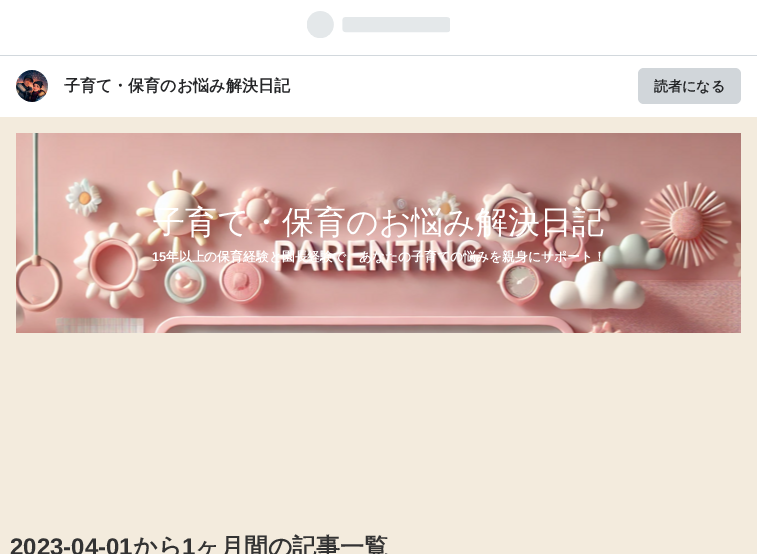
%!PS-Adobe-3.0
%%BoundingBox: 0 0 757 554
%%LanguageLevel: 3
%%Pages: 1
%%EndComments
%%BeginProlog
/f { fill } bind def
/fn { [ exch dup neg 0 0 3 -1 roll 0 0 ] selectfont } def
/tx { moveto show } def
/bx { rectfill } def
/rr { 5 dict begin { /r /h /w /y /x } { exch def } forall
  x r add y moveto x w add y 2 copy h add r arct x w add y h add x 1 index r arct
  x y h add x y r arct x y 2 copy exch w add exch r arct closepath end } def
/im { 5 dict begin { /h /w /y /x /name } { exch def } forall
  gsave x y translate w h scale
  w h 8 [w 0 0 h 0 0] name (r) file false 3 colorimage grestore end } def
%%EndProlog
%%BeginSetup
<< /PageSize [757 554] >> setpagedevice
%%EndSetup
%%Page: 1 1
0 554 translate 1 -1 scale
4 setmiterlimit
0.953 0.922 0.867 setrgbcolor
0 0 757 554 bx
1 setgray
0 0 757 55 bx
0.824 0.847 0.867 setrgbcolor
0 55 757 1 bx
(image0.raw) 307 11 143 27 im
1 setgray
0 56 757 61 bx
(image1.raw) 16 70 32 32 im
/WenQuanYiZenHei-Bold 16 fn
0.141 0.145 0.153 setrgbcolor
(子育て・保育のお悩み解決日記) 64 91 tx
0.82 0.839 0.855 setrgbcolor
638 68 103 36 6 rr f
/WenQuanYiZenHei-Bold 14 fn
0.141 0.145 0.153 setrgbcolor
(読者になる) 654 91 tx
(image2.raw) 16 133 725 200 im
/WenQuanYiZenHei-Medium 32 fn
1 setgray
(子育て・保育のお悩み解決日記) 153 233 tx
/LiberationSans-Bold 12.8 fn
(15) 152 261 tx
/WenQuanYiZenHei-Bold 12.8 fn
(年以上の保育経験と園長経験で、あなたの子育ての悩みを親身にサポート！) 166 261 tx
/LiberationSans-Bold 24 fn
0.2 setgray
(2023-04-01) 10 555 tx
/WenQuanYiZenHei-Bold 24 fn
(から) 133 555 tx
/LiberationSans-Bold 24 fn
(1) 182 555 tx
/WenQuanYiZenHei-Bold 24 fn
(ヶ月間の記事一覧) 195 555 tx
showpage
%%EOF
